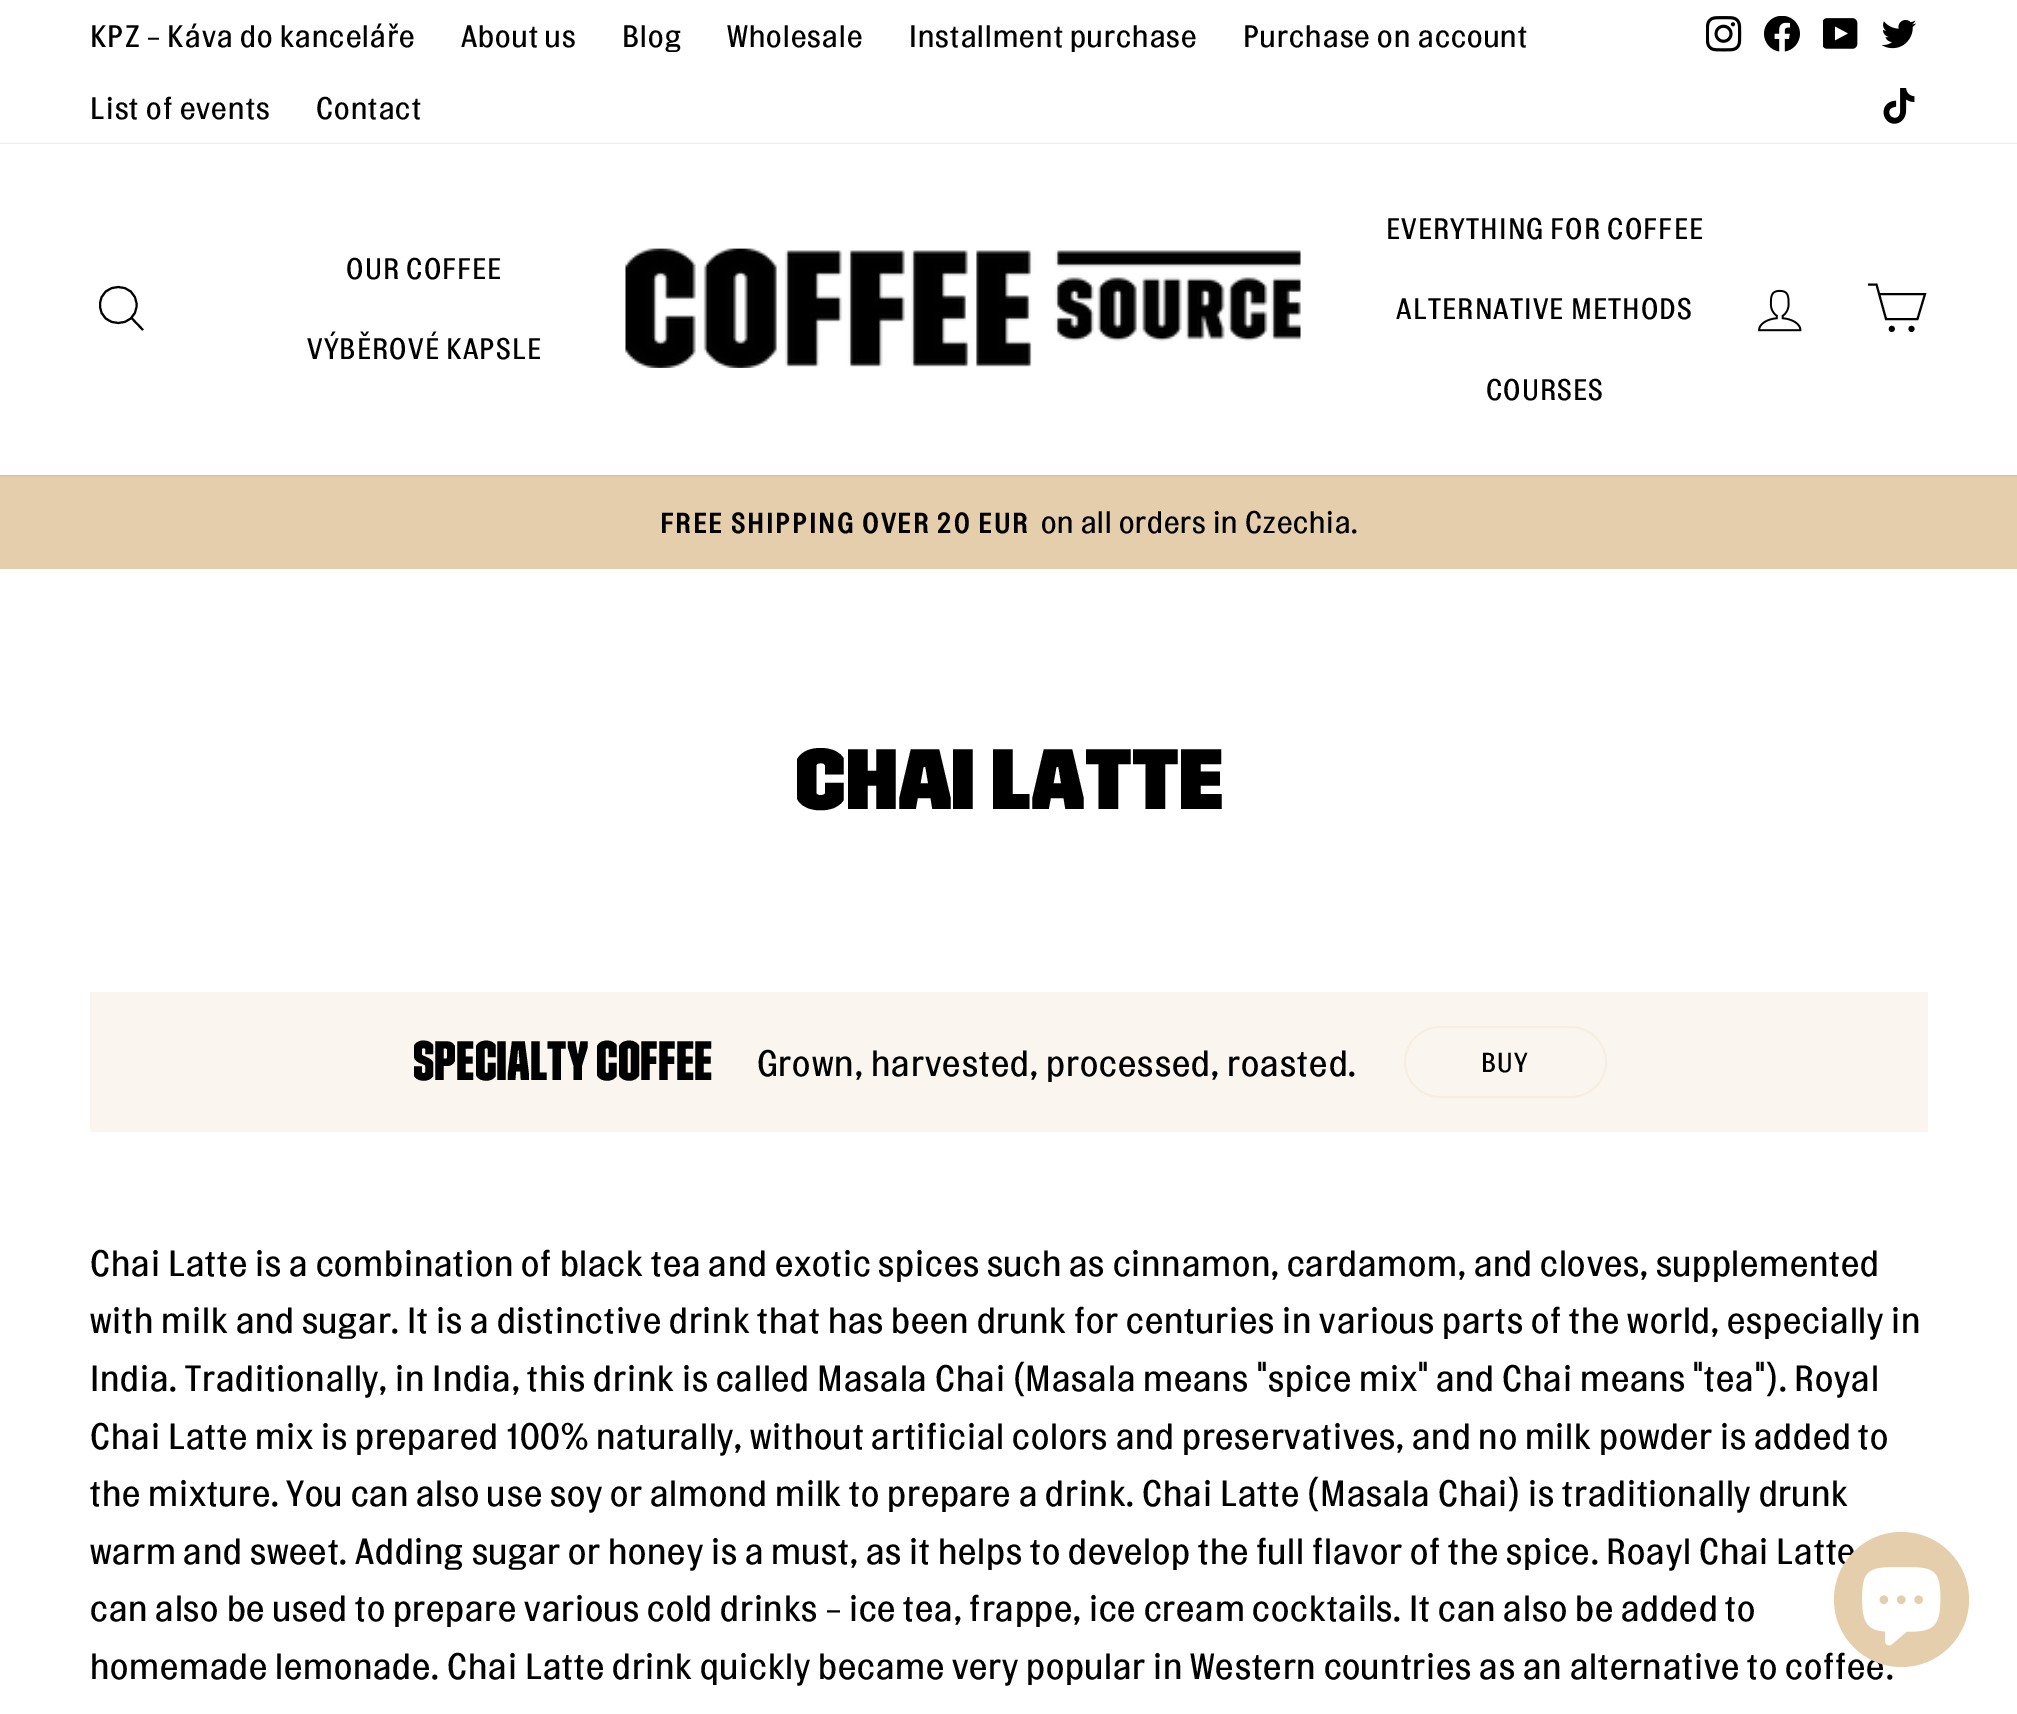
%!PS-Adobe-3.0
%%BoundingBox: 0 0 2017 1714
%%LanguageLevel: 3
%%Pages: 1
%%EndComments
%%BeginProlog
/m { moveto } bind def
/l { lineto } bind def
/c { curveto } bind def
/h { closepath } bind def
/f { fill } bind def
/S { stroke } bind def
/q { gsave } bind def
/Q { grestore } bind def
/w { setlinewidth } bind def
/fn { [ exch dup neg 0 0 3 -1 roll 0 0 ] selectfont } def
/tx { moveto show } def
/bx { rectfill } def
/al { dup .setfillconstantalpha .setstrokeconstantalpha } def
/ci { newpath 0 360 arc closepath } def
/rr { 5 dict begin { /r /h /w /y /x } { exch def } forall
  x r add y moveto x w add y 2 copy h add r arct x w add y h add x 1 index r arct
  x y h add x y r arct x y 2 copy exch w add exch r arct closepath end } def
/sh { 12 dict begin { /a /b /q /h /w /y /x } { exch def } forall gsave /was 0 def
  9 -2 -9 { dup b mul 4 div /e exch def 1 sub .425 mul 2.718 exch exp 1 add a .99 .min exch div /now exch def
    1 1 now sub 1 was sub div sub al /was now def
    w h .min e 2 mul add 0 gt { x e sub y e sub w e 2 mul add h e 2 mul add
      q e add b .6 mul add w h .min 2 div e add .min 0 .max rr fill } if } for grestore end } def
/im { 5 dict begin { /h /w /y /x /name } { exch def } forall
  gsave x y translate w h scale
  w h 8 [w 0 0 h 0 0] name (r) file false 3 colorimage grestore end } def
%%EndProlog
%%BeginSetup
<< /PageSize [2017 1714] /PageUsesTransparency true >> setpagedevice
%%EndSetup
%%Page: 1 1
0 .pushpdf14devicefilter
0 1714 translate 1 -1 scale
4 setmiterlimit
1 setgray
0 0 2017 1714 bx
/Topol-Regular 30.6 fn
0 setgray
90 47 m 1.1 0 (KPZ - Káva do kanceláře) ashow
461 47 m 1.1 0 (About us) ashow
622 47 m 1.1 0 (Blog) ashow
727 47 m 1.1 0 (Wholesale) ashow
909 47 m 1.1 0 (Installment purchase) ashow
1243 47 m 1.1 0 (Purchase on account) ashow
90 119 m 1.1 0 (List of events) ashow
316 119 m 1.1 0 (Contact) ashow
(image0.raw) 1706 16 36 36 im
(image1.raw) 1764 16 36 36 im
(image2.raw) 1823 18 35 31 im
(image3.raw) 1881 20 35 29 im
(image4.raw) 1883 88 32 36 im
0.894 0.808 0.675 setrgbcolor
0 475 2017 94 bx
0 setgray
0 144 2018 331 0 1 0.2 sh
1 setgray
0 144 2017 331 bx
0 setgray
2 w
136.5 305 m 136.5 329 100 329 100 305 c 100 281 136.5 281 136.5 305 c h 143 330 m 131.5 318 l S
/Topol-Regular 29.25 fn
346 279 m 1.1 0 (OUR COFFEE) ashow
307 359 m 1.1 0 (VÝBĚROVÉ KAPSLE) ashow
(image5.raw) 625 248 676 120 im
1386 239 m 1.1 0 (EVERYTHING FOR COFFEE) ashow
1396 319 m 1.1 0 (ALTERNATIVE METHODS) ashow
1486 400 m 1.1 0 (COURSES) ashow
(image6.raw) 1758 289 44 43 im
1879 294 m 1925 294 l 1917.5 319 l 1886 319 l 1876.5 284.5 l 1868 284.5 l S
1891.8 328.9 2 ci q f Q
S
1911.5 328.9 2 ci q f Q
S
/Topol-Bold 27.5 fn
660 533 m 2.25 0 (FREE SHIPPING OVER 20 EUR) ashow
/Topol-Regular 30.6 fn
1041 533 m 0.9 0 (on all orders in Czechia.) ashow
/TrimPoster-ExtraBold 85.5 fn
(CHAI LATTE) 795 809 tx
0.98 0.965 0.937 setrgbcolor
90 992 1838 140 bx
/TrimPoster-SemiBold 55.5 fn
0 setgray
(SPECIALTY COFFEE) 413 1080 tx
/Topol-Regular 36 fn
757 1076 m 1.1 0 (Grown, harvested, processed, roasted.) ashow
0.965 0.933 0.886 setrgbcolor
1405 1027 201 70 35 rr S
/Topol-Regular 27 fn
0 setgray
1481 1072 m 1.1 0 (BUY) ashow
/Topol-Regular 36 fn
90 1276 m 0.9 0 (Chai Latte is a combination of black tea and exotic spices such as cinnamon, cardamom, and cloves, supplemented) ashow
90 1333 m 0.9 0 (with milk and sugar. It is a distinctive drink that has been drunk for centuries in various parts of the world, especially in) ashow
90 1391 m 0.9 0 (India. Traditionally, in India, this drink is called Masala Chai \(Masala means "spice mix" and Chai means "tea"\). Royal) ashow
90 1449 m 0.9 0 (Chai Latte mix is prepared 100% naturally, without artificial colors and preservatives, and no milk powder is added to) ashow
90 1506 m 0.9 0 (the mixture. You can also use soy or almond milk to prepare a drink. Chai Latte \(Masala Chai\) is traditionally drunk) ashow
90 1564 m 0.9 0 (warm and sweet. Adding sugar or honey is a must, as it helps to develop the full flavor of the spice. Roayl Chai Latte) ashow
90 1621 m 0.9 0 (can also be used to prepare various cold drinks - ice tea, frappe, ice cream cocktails. It can also be added to) ashow
90 1679 m 0.9 0 (homemade lemonade. Chai Latte drink quickly became very popular in Western countries as an alternative to coffee.) ashow
0.894 0.808 0.675 setrgbcolor
1901.5 1599.5 67.5 ci f
(image7.raw) 1862 1567 79 79 im
.poppdf14devicefilter showpage
%%EOF
